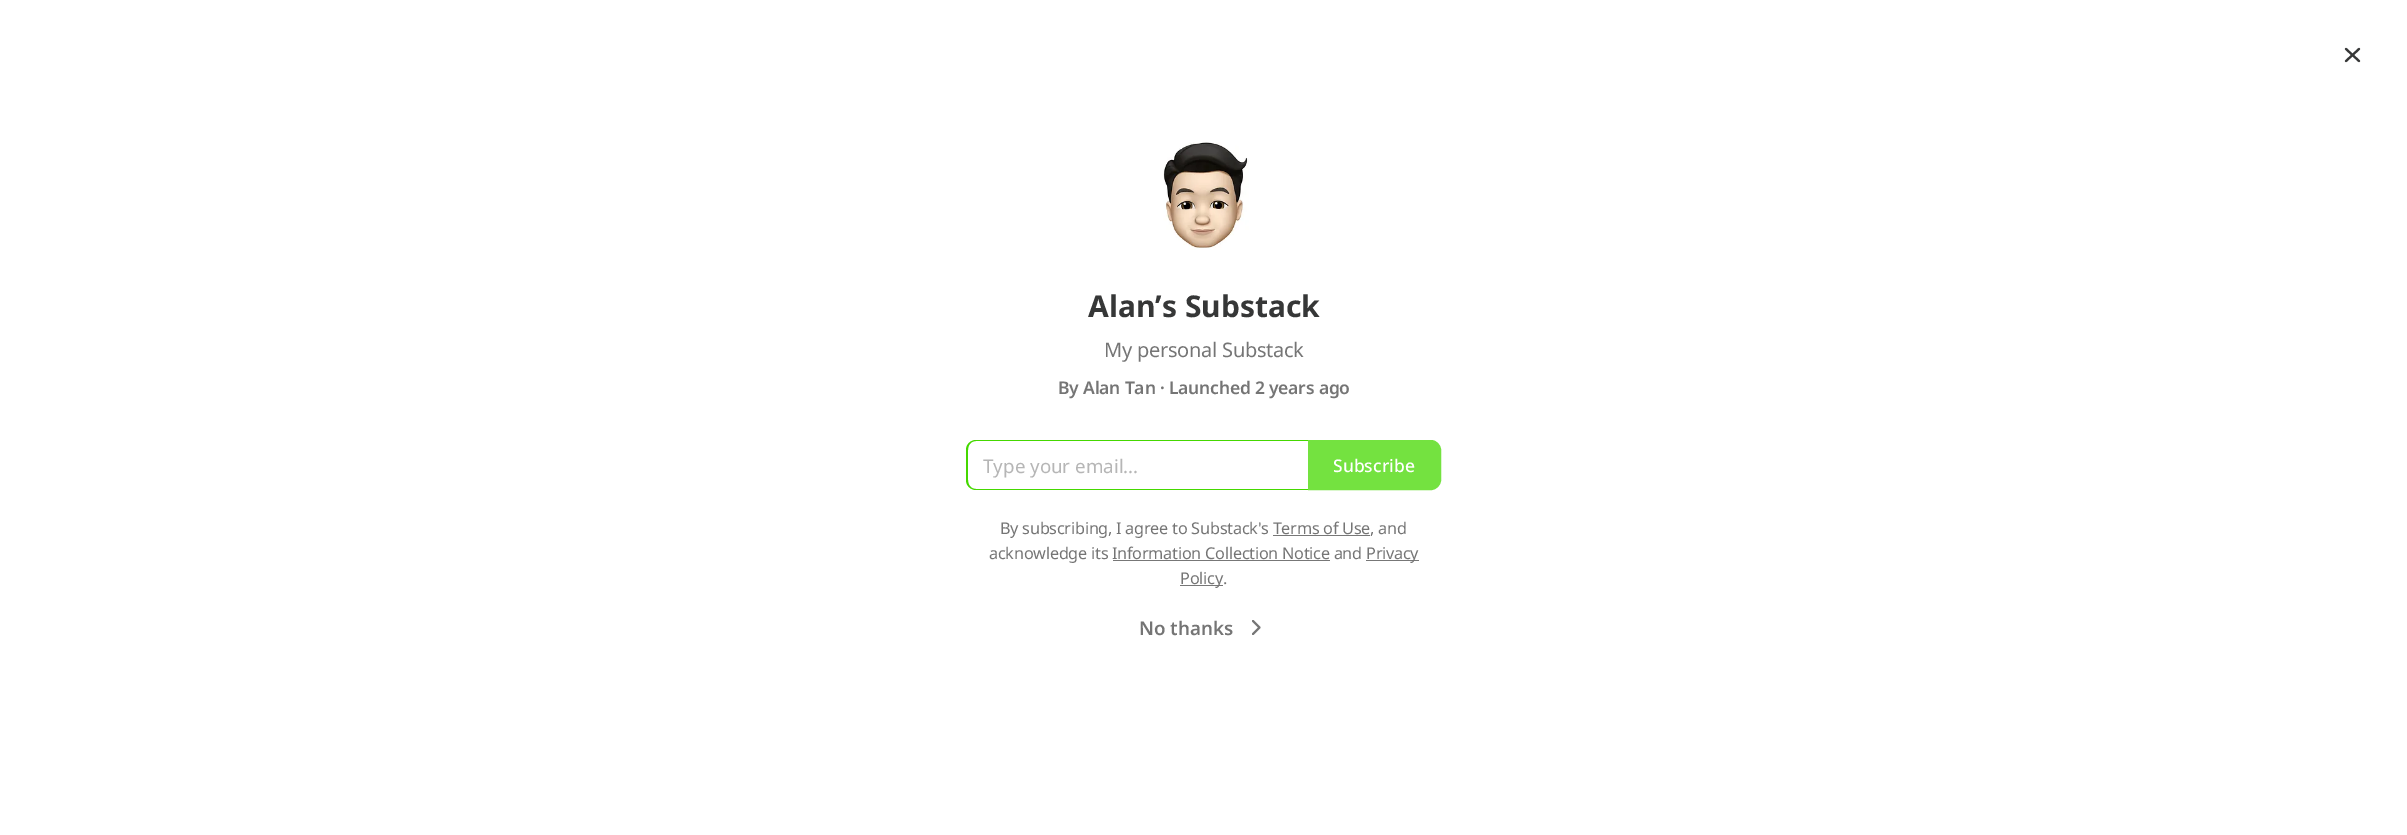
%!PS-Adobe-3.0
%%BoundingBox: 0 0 2407 835
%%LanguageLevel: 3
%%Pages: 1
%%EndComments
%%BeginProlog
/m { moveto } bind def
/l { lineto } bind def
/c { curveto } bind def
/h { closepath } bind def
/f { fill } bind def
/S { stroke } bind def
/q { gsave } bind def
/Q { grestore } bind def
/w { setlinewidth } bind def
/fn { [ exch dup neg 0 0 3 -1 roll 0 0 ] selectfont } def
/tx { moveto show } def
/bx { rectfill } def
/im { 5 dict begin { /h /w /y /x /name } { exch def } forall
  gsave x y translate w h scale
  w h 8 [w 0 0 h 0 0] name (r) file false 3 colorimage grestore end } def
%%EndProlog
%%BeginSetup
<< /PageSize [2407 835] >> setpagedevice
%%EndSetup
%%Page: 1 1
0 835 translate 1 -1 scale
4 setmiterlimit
1 setgray
0 0 2407 835 bx
0.212 0.216 0.216 setrgbcolor
2.1 w
1 setlinecap
1 setlinejoin
2359 49 m 2346 61 l 2346 49 m 2359 61 l S
(image0.raw) 1163 142 86 108 im
/NotoSans-Bold 30 fn
(Alan’s Substack) 1088 317 tx
/NotoSans-Regular 20 fn
0.459 setgray
1104 357 m -0.25 0 (My personal Substack) ashow
/NotoSans-SemiBold 17.5 fn
1058 394 m -0.2 0 (By Alan Tan · Launched 2 years ago) ashow
0.271 0.847 0 setrgbcolor
976 440 m 1308 440 l 1308 490 l 976 490 l 971 490 966 486 966 480 c 966 450 l 966 444 971 440 976 440 c h 976 441 m 1308 441 l 1308 489 l 976 489 l 971 489 968 485 968 480 c 968 450 l 968 445 971 441 976 441 c h eofill
/NotoSans-Regular 18.75 fn
0.714 setgray
(Type your email...) 983 473 tx
0.455 0.886 0.251 setrgbcolor
1308.5 440.5 m 1431 440.5 l 1436 440.5 1440.5 445 1440.5 450 c 1440.5 480 l 1440.5 485 1436 489.5 1431 489.5 c 1308.5 489.5 l h q f Q
1 w
0 setlinecap
0 setlinejoin
S
/NotoSans-Medium 17.5 fn
1 setgray
(Subscribe) 1333 472 tx
/NotoSans-Regular 16.25 fn
0.459 setgray
1000 534 m -0.25 0 (By subscribing, I agree to Substack's Terms of Use, and) ashow
0.467 setgray
1273 535 97 1 bx
0.459 setgray
989 559 m -0.25 0 (acknowledge its Information Collection Notice and) ashow
0.467 setgray
1366 560 53 1 bx
0.459 setgray
1366 559 m -0.25 0 (Privacy) ashow
0.467 setgray
1113 560 217 1 bx
1180 585 43 1 bx
0.459 setgray
1180 584 m -0.25 0 (Policy.) ashow
/NotoSans-SemiBold 18.75 fn
(No thanks) 1139 635 tx
2.1 w
1 setlinecap
1 setlinejoin
1253 634 m 1259.5 627.5 l 1253 621 l S
showpage
%%EOF
